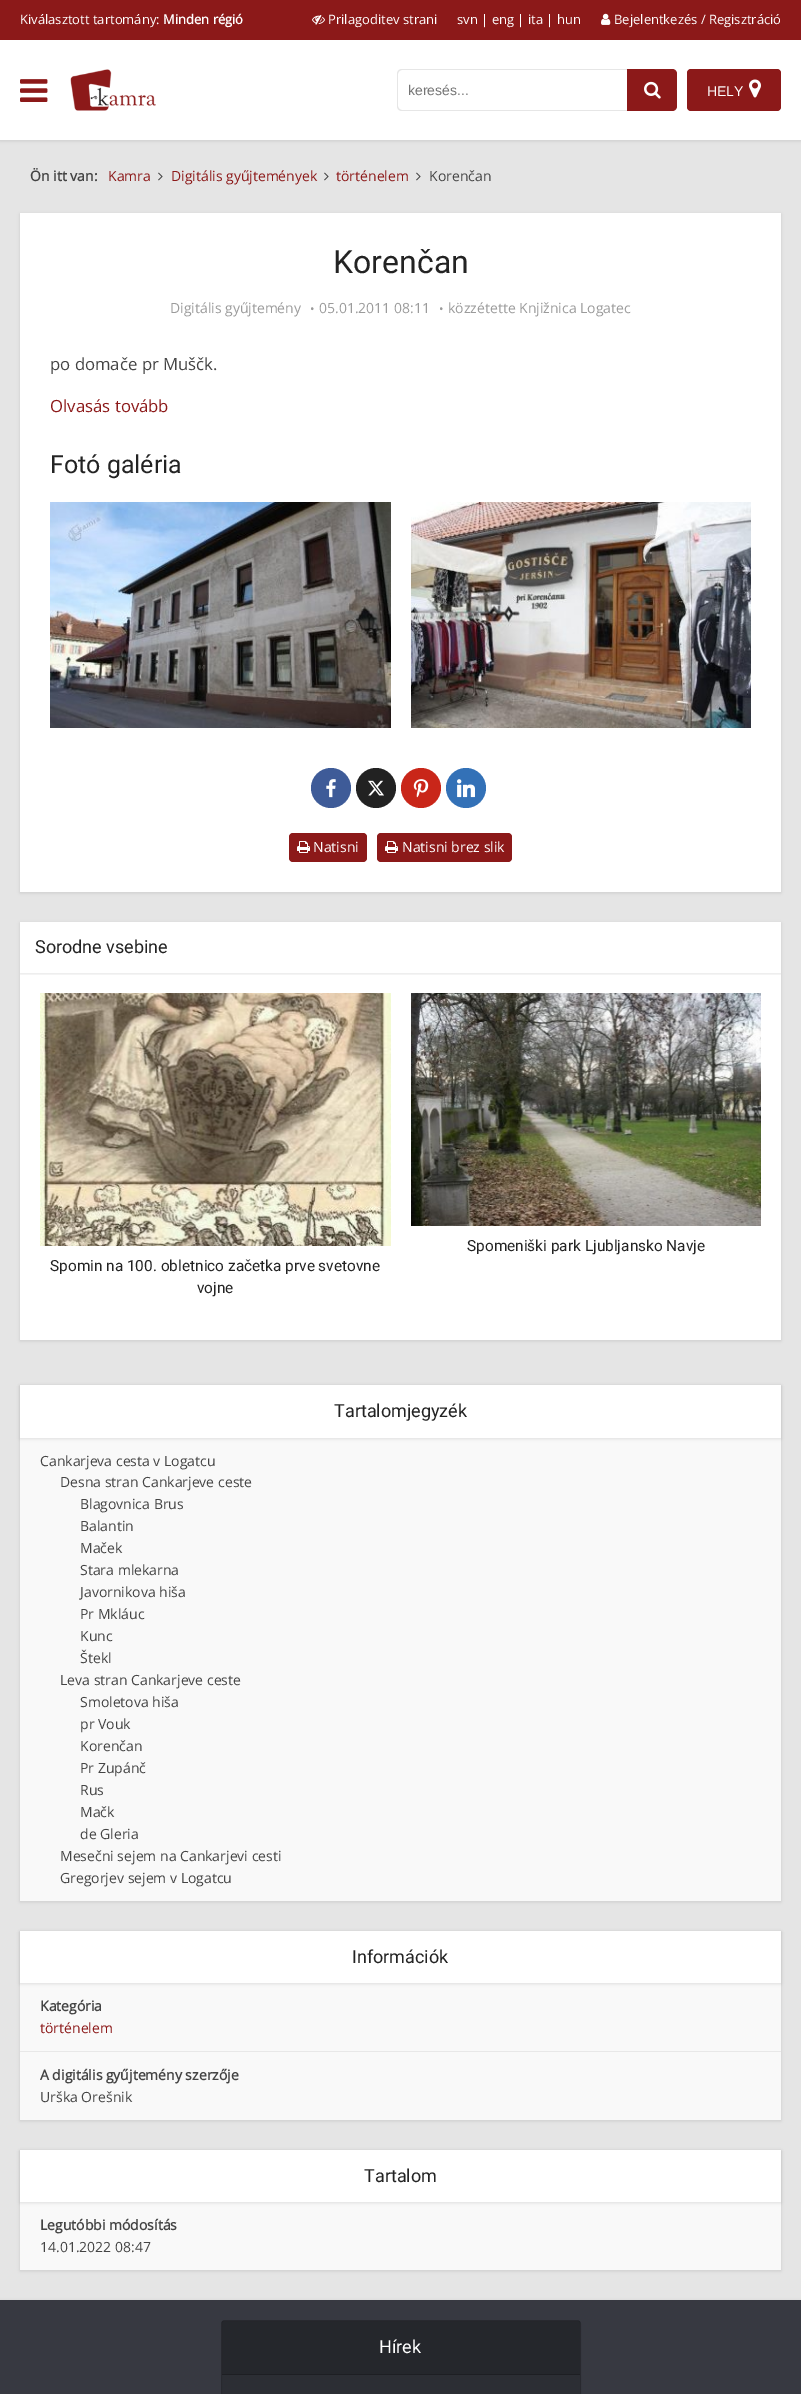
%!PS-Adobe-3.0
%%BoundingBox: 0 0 801 2394
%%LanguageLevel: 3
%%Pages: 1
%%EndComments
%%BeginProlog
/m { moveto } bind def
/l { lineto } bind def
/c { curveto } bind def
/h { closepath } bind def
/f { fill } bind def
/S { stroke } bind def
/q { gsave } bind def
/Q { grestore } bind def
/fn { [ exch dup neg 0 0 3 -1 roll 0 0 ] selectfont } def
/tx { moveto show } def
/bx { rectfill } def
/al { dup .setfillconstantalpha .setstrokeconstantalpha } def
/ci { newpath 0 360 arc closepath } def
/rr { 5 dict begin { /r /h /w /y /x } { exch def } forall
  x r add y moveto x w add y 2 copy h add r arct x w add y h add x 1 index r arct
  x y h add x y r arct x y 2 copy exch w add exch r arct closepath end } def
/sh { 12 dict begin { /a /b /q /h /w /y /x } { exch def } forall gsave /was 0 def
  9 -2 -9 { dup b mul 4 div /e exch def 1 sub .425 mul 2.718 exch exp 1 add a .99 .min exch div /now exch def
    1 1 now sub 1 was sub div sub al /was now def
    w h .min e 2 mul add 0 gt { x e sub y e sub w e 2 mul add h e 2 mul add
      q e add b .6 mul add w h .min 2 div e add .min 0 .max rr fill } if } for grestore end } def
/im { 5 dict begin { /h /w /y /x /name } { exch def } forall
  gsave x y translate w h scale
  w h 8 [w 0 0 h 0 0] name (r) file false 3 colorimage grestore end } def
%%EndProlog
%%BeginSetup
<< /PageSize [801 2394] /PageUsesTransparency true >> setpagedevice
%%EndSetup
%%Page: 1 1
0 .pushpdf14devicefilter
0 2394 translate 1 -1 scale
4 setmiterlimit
0.898 setgray
0 0 801 2394 bx
0 setgray
0 1 801 140 0 1.5 0.1 sh
1 setgray
0 40 801 100 bx
0.549 0.098 0.098 setrgbcolor
0 0 801 40 bx
/OpenSans-Regular 13 fn
1 setgray
(Kiválasztott tartomány:) 20 24 tx
/OpenSans-Bold 13 fn
(Minden régió) 163 24 tx
(image0.raw) 312 15 13 10 im
/OpenSans-Regular 13 fn
(Prilagoditev strani) 328 24 tx
(svn | eng | ita | hun) 457 24 tx
(image1.raw) 601 13 10 12 im
(Bejelentkezés / Regisztráció) 614 24 tx
(image2.raw) 20 79 28 23 im
(image3.raw) 70 69 86 42 im
0.902 setgray
402 69 m 627 69 l 627 111 l 402 111 l 399 111 397 109 397 106 c 397 74 l 397 71 399 69 402 69 c h 402 70 m 627 70 l 627 110 l 402 110 l 400 110 398 108 398 106 c 398 74 l 398 72 400 70 402 70 c h eofill
/LiberationSans-Regular 14 fn
0.459 setgray
(keresés...) 408 95 tx
0.549 0.098 0.098 setrgbcolor
627 69 m 672 69 l 675 69 677 71 677 74 c 677 106 l 677 109 675 111 672 111 c 627 111 l h f
(image4.raw) 644 81 17 18 im
687 69 94 42 4 rr f
1 setgray
(HELY) 707 96 tx
(image5.raw) 749 79 12 19 im
/OpenSans-Bold 14 fn
0.267 setgray
(Ön itt van:) 30 181 tx
/OpenSans-Regular 14 fn
0.549 0.098 0.098 setrgbcolor
(Kamra) 108 181 tx
(image6.raw) 158 172 5 9 im
(Digitális gyűjtemények) 171 181 tx
(image6.raw) 324 172 5 9 im
(történelem) 336 181 tx
(image6.raw) 416 172 5 9 im
0.267 setgray
(Korenčan) 429 181 tx
0 setgray
20 214 761 679 0 1.5 0.1 sh
1 setgray
20 213 761 679 bx
/Roboto-Regular 32 fn
0.137 setgray
(Korenčan) 333 273 tx
/OpenSans-Regular 14 fn
0.608 setgray
(Digitális gyűjtemény) 170 313 tx
/OpenSans-Regular 12 fn
(•) 310 313 tx
/OpenSans-Regular 14 fn
(05.01.2011 08:11) 319 313 tx
/OpenSans-Regular 12 fn
(•) 439 313 tx
/OpenSans-Regular 14 fn
(közzétette Knjižnica Logatec) 448 313 tx
/OpenSans-Regular 16.75 fn
0.267 setgray
(po domače pr Muščk.) 50 370 tx
0.549 0.098 0.098 setrgbcolor
(Olvasás tovább) 50 412 tx
/Roboto-Regular 25 fn
0.137 setgray
(Fotó galéria) 50 473 tx
(image7.raw) 50 502 341 226 im
(image8.raw) 411 502 340 226 im
0.243 0.357 0.596 setrgbcolor
331 788 20 ci f
(image9.raw) 326 779 10 19 im
0.133 setgray
376 788 20 ci f
(image10.raw) 368 780 16 16 im
0.788 0.149 0.098 setrgbcolor
421 788 20 ci f
(image11.raw) 413 779 16 19 im
0.2 0.443 0.718 setrgbcolor
466 788 20 ci f
(image12.raw) 457 779 18 19 im
0.549 0.098 0.098 setrgbcolor
289 833 78 29 4 rr f
(image13.raw) 297 841 13 12 im
/OpenSans-Regular 14 fn
1 setgray
(Natisni) 313 852 tx
0.549 0.098 0.098 setrgbcolor
377 833 135 29 4 rr f
(image13.raw) 385 841 13 12 im
1 setgray
(Natisni brez slik) 402 852 tx
0 setgray
20 923 761 418 0 1.5 0.1 sh
1 setgray
20 922 761 418 bx
q
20 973 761 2 rectclip
0 setgray
20 923 761 51 0 1.5 0.1 sh
Q
/Roboto-Regular 18 fn
0.137 setgray
(Sorodne vsebine) 35 953 tx
(image14.raw) 411 993 350 233 im
/Roboto-Regular 15.4 fn
(Spomeniški park Ljubljansko Navje) 467 1251 tx
(image15.raw) 40 993 351 253 im
(Spomin na 100. obletnico začetka prve svetovne) 50 1271 tx
(vojne) 197 1293 tx
0 setgray
20 1386 761 516 0 1.5 0.1 sh
0.976 setgray
20 1438 761 463 bx
0 setgray
20 1386 761 53 0 1.5 0.1 sh
1 setgray
20 1385 761 53 bx
/Roboto-Regular 18 fn
0.137 setgray
(Tartalomjegyzék) 334 1417 tx
/OpenSans-Regular 14 fn
0.267 setgray
(Cankarjeva cesta v Logatcu) 40 1466 tx
(Desna stran Cankarjeve ceste) 60 1487 tx
(Blagovnica Brus) 80 1509 tx
(Balantin) 80 1531 tx
(Maček) 80 1553 tx
(Stara mlekarna) 80 1575 tx
(Javornikova hiša) 80 1597 tx
(Pr Mkláuc) 80 1619 tx
(Kunc) 80 1641 tx
(Štekl) 80 1663 tx
(Leva stran Cankarjeve ceste) 60 1685 tx
(Smoletova hiša) 80 1707 tx
(pr Vouk) 80 1729 tx
(Korenčan) 80 1751 tx
(Pr Zupánč) 80 1773 tx
(Rus) 80 1795 tx
(Mačk) 80 1817 tx
(de Gleria) 80 1839 tx
(Mesečni sejem na Cankarjevi cesti) 60 1861 tx
(Gregorjev sejem v Logatcu) 60 1883 tx
0 setgray
20 1932 761 189 0 1.5 0.1 sh
0.976 setgray
20 1983 761 137 bx
0 setgray
20 1932 761 52 0 1.5 0.1 sh
1 setgray
20 1931 761 52 bx
/Roboto-Regular 18 fn
0.137 setgray
(Információk) 352 1963 tx
0.91 setgray
20 2051 761 1 bx
/OpenSans-Bold 14 fn
0.267 setgray
(Kategória) 40 2011 tx
/OpenSans-Regular 14 fn
0.549 0.098 0.098 setrgbcolor
(történelem) 40 2033 tx
/OpenSans-Bold 14 fn
0.267 setgray
(A digitális gyűjtemény szerzője) 40 2080 tx
/OpenSans-Regular 14 fn
(Urška Orešnik) 40 2102 tx
0 setgray
20 2151 761 120 0 1.5 0.1 sh
0.976 setgray
20 2202 761 68 bx
0 setgray
20 2151 761 52 0 1.5 0.1 sh
1 setgray
20 2150 761 52 bx
/Roboto-Regular 18 fn
0.137 setgray
(Tartalom) 364 2182 tx
/OpenSans-Bold 14 fn
0.267 setgray
(Legutóbbi módosítás) 40 2230 tx
/OpenSans-Regular 14 fn
(14.01.2022 08:47) 40 2252 tx
0 setgray
0 2302 801 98 0 2 0.2 sh
0.216 0.224 0.255 setrgbcolor
0 2300 801 94 bx
0.173 0.18 0.204 setrgbcolor
221 2320 360 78 4 rr f
0.1 al
0 setgray
221.5 2320.5 359 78 3.5 rr S
0.15 al
222 2321 358 53 bx
1 al
0.118 0.122 0.137 setrgbcolor
222 2374 358 1 bx
/Roboto-Regular 18 fn
1 setgray
(Hírek) 379 2353 tx
.poppdf14devicefilter showpage
%%EOF
